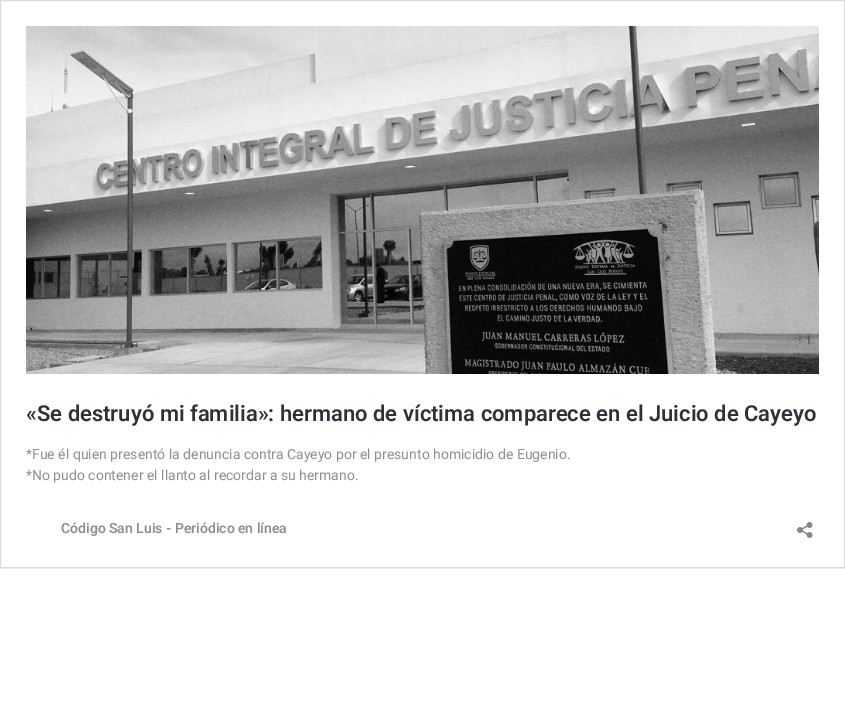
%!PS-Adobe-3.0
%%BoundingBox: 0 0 845 712
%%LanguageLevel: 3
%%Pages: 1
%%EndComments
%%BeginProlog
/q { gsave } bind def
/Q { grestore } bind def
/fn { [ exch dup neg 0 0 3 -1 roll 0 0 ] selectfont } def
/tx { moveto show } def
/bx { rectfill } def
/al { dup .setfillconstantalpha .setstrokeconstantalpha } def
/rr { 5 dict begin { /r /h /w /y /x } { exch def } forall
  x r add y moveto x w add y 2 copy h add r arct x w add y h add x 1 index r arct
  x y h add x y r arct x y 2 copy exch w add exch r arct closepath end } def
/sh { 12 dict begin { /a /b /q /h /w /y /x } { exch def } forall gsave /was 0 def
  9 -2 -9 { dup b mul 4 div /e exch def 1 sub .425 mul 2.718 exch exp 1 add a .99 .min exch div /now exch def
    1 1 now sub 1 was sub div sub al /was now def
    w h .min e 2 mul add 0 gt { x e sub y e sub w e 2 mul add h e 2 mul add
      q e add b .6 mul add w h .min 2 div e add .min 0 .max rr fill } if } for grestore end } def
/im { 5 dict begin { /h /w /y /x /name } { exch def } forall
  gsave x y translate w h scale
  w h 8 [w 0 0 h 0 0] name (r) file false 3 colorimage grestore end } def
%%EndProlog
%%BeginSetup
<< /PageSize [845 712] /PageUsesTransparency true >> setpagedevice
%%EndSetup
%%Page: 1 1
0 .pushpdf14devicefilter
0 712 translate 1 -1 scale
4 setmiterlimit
1 setgray
0 0 845 712 bx
q
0 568 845 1 rectclip
0 setgray
0 1 845 568 0 0.5 0.05 sh
Q
0.863 0.863 0.871 setrgbcolor
0.5 0.5 844 567 rectstroke
(image0.raw) 26 26 793 348 im
/Roboto-SemiBold 22 fn
0.173 0.2 0.22 setrgbcolor
(«Se destruyó mi familia»: hermano de víctima comparece en el Juicio de Cayeyo) 26 421 tx
/Roboto-Regular 14 fn
0.549 0.561 0.58 setrgbcolor
(*Fue él quien presentó la denuncia contra Cayeyo por el presunto homicidio de Eugenio.) 26 459 tx
(*No pudo contener el llanto al recordar a su hermano.) 26 480 tx
/Roboto-SemiBold 14 fn
(Código San Luis - Periódico en línea) 61 533 tx
(image1.raw) 797 522 16 16 im
.poppdf14devicefilter showpage
%%EOF
